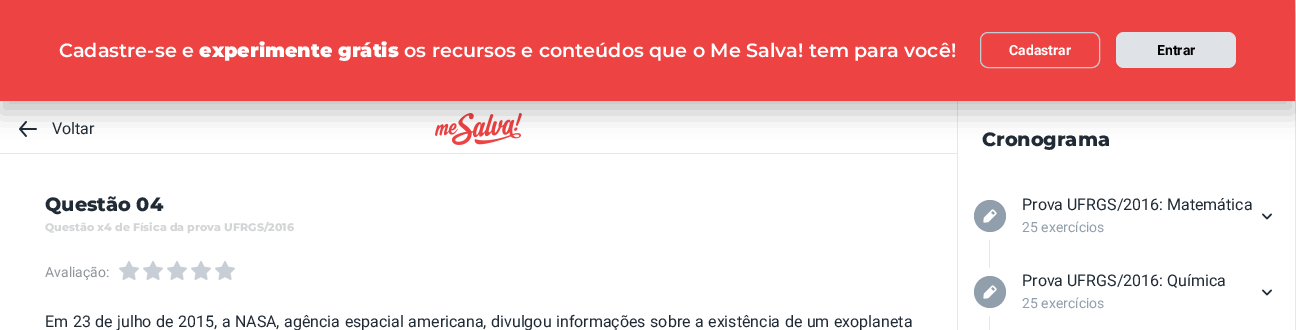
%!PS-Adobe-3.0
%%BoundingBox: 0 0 1296 330
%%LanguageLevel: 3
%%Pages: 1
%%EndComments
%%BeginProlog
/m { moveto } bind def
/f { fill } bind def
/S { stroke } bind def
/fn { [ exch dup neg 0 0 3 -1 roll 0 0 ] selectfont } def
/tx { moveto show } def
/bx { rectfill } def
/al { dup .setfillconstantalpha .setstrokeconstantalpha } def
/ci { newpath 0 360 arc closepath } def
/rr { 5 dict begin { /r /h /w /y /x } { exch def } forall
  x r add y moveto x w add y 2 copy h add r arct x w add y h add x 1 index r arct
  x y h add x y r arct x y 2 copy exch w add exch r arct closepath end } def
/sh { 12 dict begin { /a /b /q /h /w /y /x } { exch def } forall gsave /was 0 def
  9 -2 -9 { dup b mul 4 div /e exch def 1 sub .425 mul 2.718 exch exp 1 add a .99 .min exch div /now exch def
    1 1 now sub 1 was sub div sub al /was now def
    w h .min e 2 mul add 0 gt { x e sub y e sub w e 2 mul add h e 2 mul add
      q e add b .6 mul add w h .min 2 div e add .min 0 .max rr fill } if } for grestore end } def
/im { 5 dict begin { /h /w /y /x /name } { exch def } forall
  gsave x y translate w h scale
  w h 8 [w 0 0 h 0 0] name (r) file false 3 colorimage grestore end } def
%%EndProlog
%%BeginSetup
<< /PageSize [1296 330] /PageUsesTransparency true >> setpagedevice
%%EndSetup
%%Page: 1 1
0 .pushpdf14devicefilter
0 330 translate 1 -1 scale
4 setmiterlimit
1 setgray
0 0 1296 330 bx
0.898 0.91 0.922 setrgbcolor
1295 0 1 330 bx
(image0.raw) 19 121 18 16 im
(image1.raw) 435 113 87 32 im
957 101 1 229 bx
0 setgray
0 12 1295 101 0 12 0.24 sh
0.573 0.624 0.557 setrgbcolor
0 0 1295 101 0 1 0.24 sh
0.929 0.263 0.263 setrgbcolor
0 0 1295 101 bx
/Montserrat-SemiBold 19.2 fn
1 setgray
(Cadastre-se e) 59 57 tx
/Montserrat-Black 19.2 fn
(experimente grátis) 199 57 tx
/Montserrat-SemiBold 19.2 fn
(os recursos e conteúdos que o Me Salva! tem para você!) 404 57 tx
0.769 0.804 0.835 setrgbcolor
980.5 32.5 119 35 7.5 rr S
/Roboto-Bold 14 fn
1 setgray
(Cadastrar) 1009 55 tx
0.875 0.89 0.91 setrgbcolor
1116 32 120 36 8 rr f
0 setgray
(Entrar) 1157 55 tx
/Roboto-Regular 16 fn
0.129 0.169 0.212 setrgbcolor
(Voltar) 52 134 tx
0.898 0.91 0.922 setrgbcolor
0 153 957 1 bx
/Montserrat-ExtraBold 19.2 fn
0.129 0.169 0.212 setrgbcolor
(Questão 04) 45 211 tx
/Montserrat-ExtraBold 11 fn
0.827 0.835 0.843 setrgbcolor
(Questão x4 de Física da prova UFRGS/2016) 45 231 tx
/Roboto-Regular 14 fn
0.565 0.584 0.608 setrgbcolor
(Avaliação:) 45 277 tx
(image2.raw) 119 261 20 19 im
(image2.raw) 143 261 20 19 im
(image2.raw) 167 261 20 19 im
(image2.raw) 191 261 20 19 im
(image2.raw) 215 261 20 19 im
/Roboto-Regular 16 fn
0.129 0.169 0.212 setrgbcolor
45 327 m 0.5 0 32 (Em 23 de julho de 2015, a NASA, agência espacial americana, divulgou informações sobre a existência de um exoplaneta) widthshow
/Montserrat-ExtraBold 19.2 fn
(Cronograma) 982 146 tx
0.569 0.62 0.671 setrgbcolor
990 216 16 ci f
(image3.raw) 983 209 14 14 im
0.898 0.91 0.922 setrgbcolor
989 240 1 28 bx
/Roboto-Regular 16 fn
0.129 0.169 0.212 setrgbcolor
(Prova UFRGS/2016: Matemática) 1022 210 tx
/Roboto-Regular 14 fn
0.569 0.62 0.671 setrgbcolor
(25 exercícios) 1022 232 tx
(image4.raw) 1262 213 10 7 im
990 292 16 ci f
(image3.raw) 983 285 14 14 im
0.898 0.91 0.922 setrgbcolor
989 316 1 14 bx
/Roboto-Regular 16 fn
0.129 0.169 0.212 setrgbcolor
(Prova UFRGS/2016: Química) 1022 286 tx
/Roboto-Regular 14 fn
0.569 0.62 0.671 setrgbcolor
(25 exercícios) 1022 308 tx
(image4.raw) 1262 289 10 7 im
.poppdf14devicefilter showpage
%%EOF
